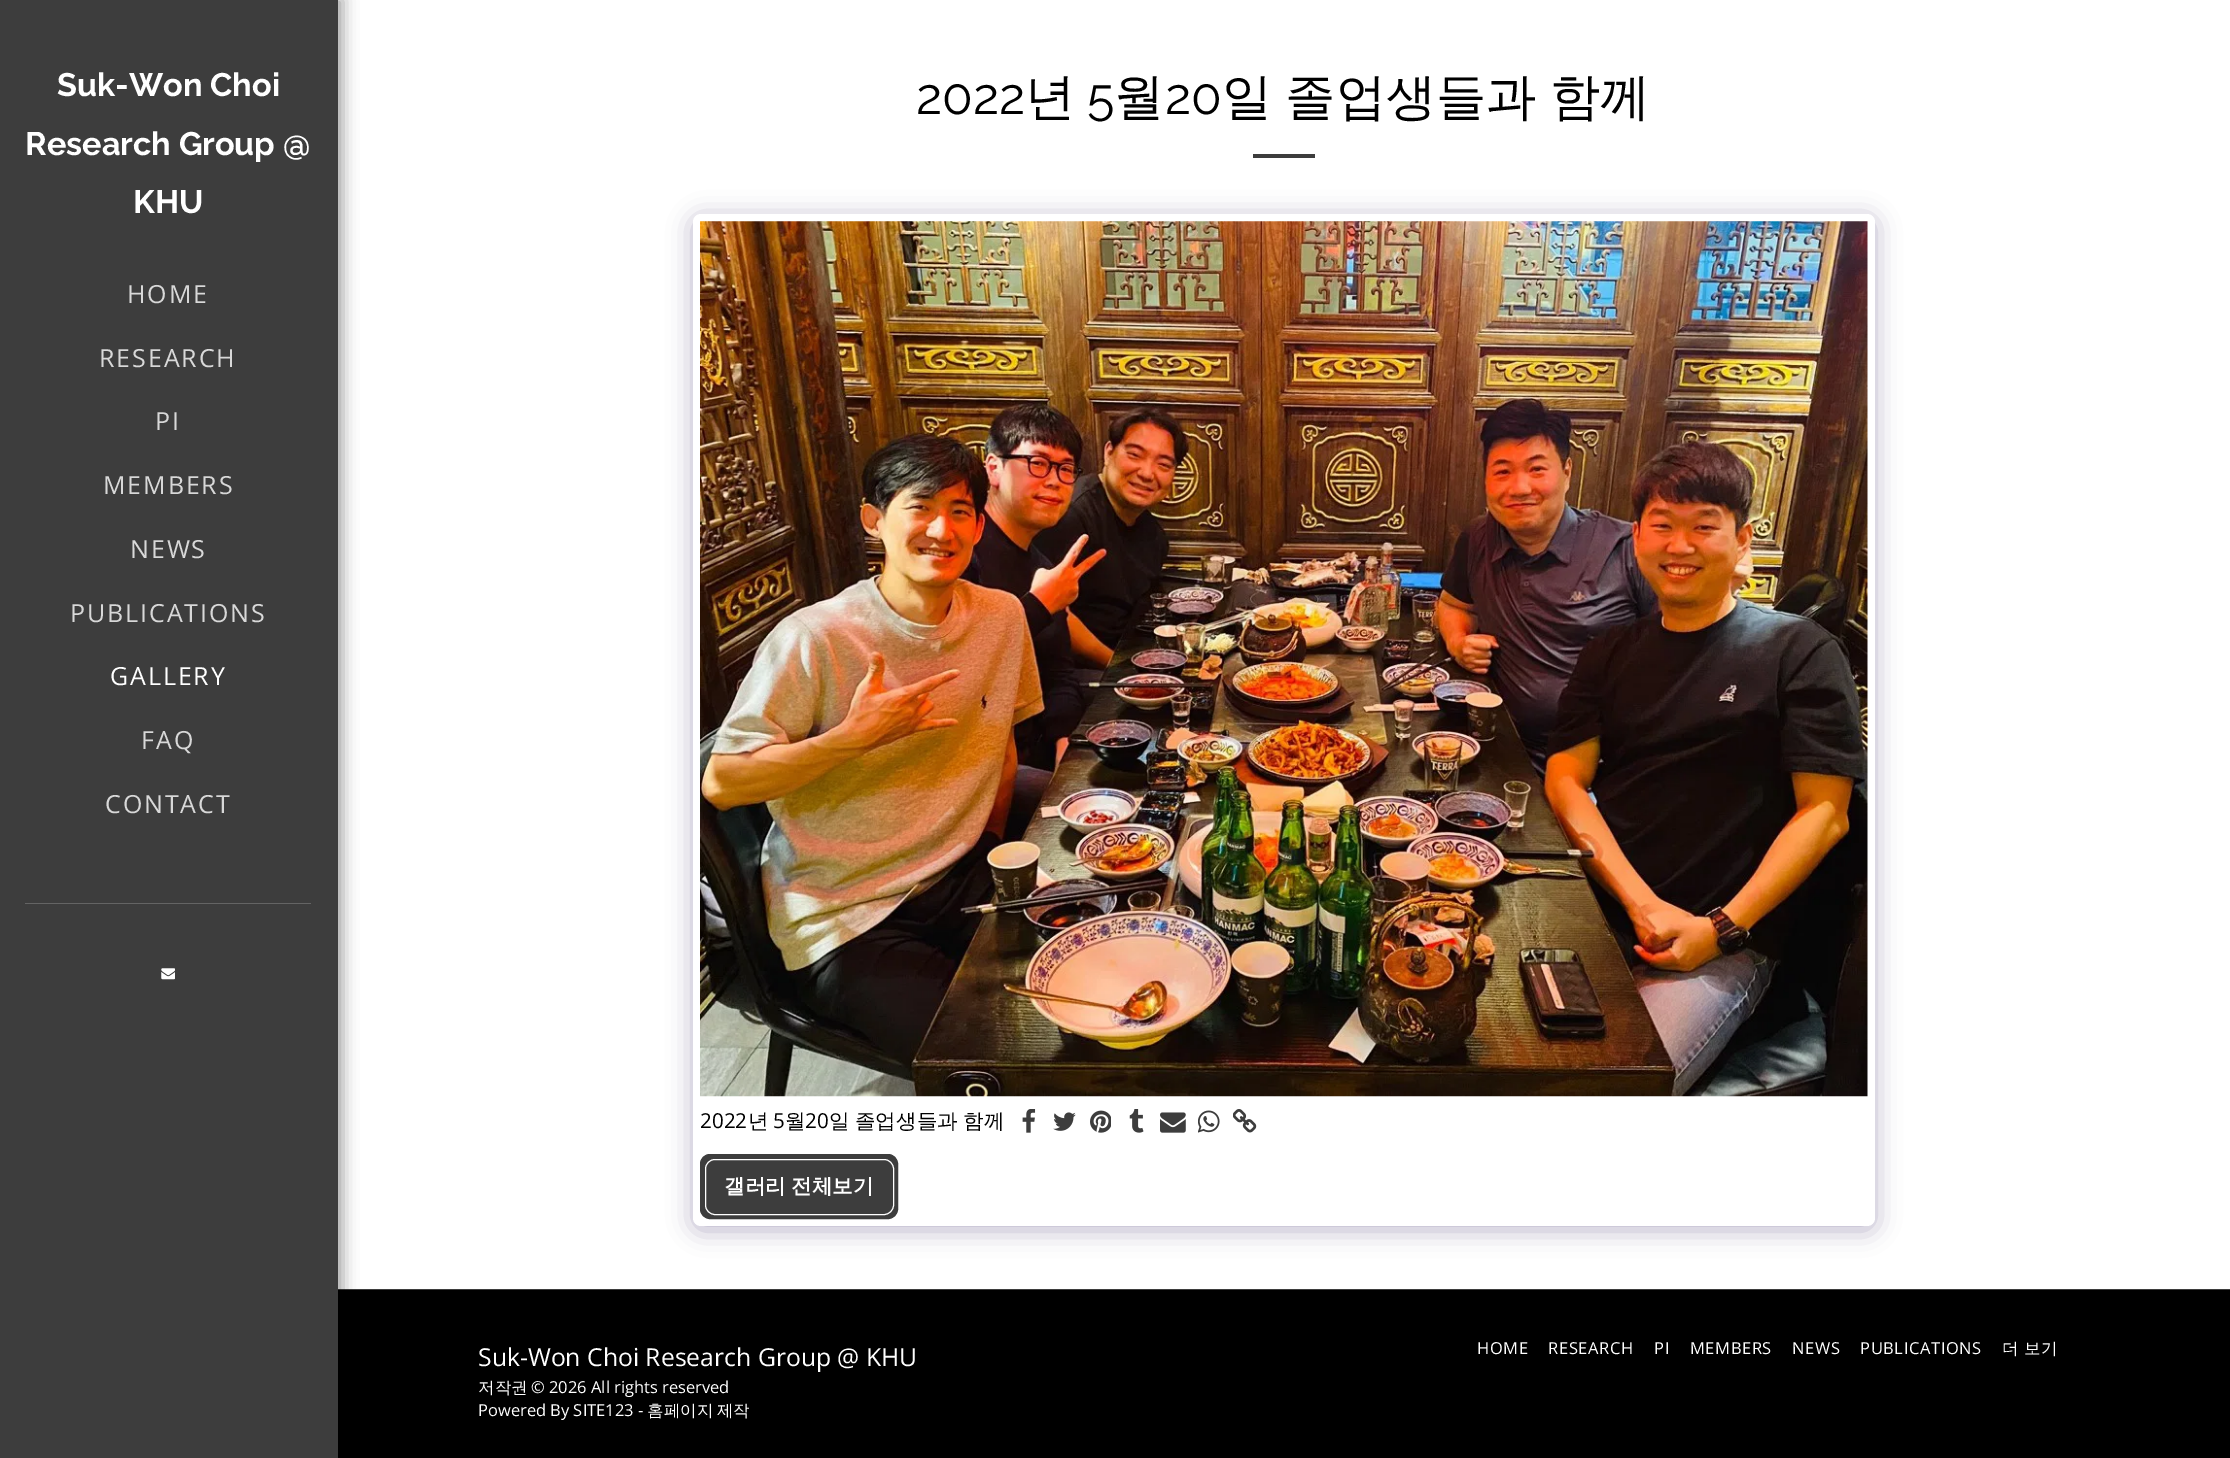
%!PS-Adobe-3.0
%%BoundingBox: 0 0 2230 1458
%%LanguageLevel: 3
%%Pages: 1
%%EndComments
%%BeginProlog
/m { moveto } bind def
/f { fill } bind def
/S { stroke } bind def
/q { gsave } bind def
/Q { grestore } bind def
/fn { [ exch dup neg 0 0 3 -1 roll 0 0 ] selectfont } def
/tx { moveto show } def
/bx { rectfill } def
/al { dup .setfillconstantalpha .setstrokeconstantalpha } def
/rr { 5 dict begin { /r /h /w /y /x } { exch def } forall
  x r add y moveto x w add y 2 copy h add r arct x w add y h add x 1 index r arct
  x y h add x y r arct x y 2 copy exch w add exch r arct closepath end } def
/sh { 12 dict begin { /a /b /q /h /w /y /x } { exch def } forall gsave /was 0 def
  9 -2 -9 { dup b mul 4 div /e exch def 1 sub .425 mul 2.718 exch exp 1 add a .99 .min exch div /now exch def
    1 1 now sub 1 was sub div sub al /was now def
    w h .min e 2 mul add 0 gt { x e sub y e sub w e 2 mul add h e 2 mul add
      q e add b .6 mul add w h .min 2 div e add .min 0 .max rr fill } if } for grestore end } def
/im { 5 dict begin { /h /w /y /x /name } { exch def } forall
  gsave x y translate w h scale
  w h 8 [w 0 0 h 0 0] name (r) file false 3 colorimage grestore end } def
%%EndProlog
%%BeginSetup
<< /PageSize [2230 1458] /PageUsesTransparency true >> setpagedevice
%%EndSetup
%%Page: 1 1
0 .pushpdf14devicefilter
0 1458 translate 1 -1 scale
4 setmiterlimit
0 setgray
0 0 2230 1458 bx
1 setgray
338 0 1892 1289 bx
0.239 setgray
338 1289 1892 1 bx
0 setgray
0 -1 343 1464 0 7.5 0.35 sh
0.239 setgray
0 0 338 1458 bx
/Raleway-Bold 32.5 fn
1 setgray
(Suk-Won Choi) 57 96 tx
(Research Group @) 25 155 tx
(KHU) 133 213 tx
/OpenSans-Regular 25 fn
0.847 setgray
127 303 m 1.9 0 (HOME) ashow
99 367 m 1.9 0 (RESEARCH) ashow
155 430 m 1.9 0 (PI) ashow
103 494 m 1.9 0 (MEMBERS) ashow
130 558 m 1.9 0 (NEWS) ashow
70 622 m 1.9 0 (PUBLICATIONS) ashow
1 setgray
110 685 m 1.9 0 (GALLERY) ashow
0.847 setgray
141 749 m 1.9 0 (FAQ) ashow
105 813 m 1.9 0 (CONTACT) ashow
0.392 setgray
25 903 286 1 bx
(image0.raw) 161 968 14 12 im
/Raleway-Regular 50.25 fn
0 setgray
(2022) 916 114 tx
/WenQuanYiZenHei-Medium 50.25 fn
(년) 1025 114 tx
/Raleway-Regular 50.25 fn
(5) 1087 114 tx
/WenQuanYiZenHei-Medium 50.25 fn
(월) 1114 114 tx
/Raleway-Regular 50.25 fn
(20) 1165 114 tx
/WenQuanYiZenHei-Medium 50.25 fn
1222 114 m -2 0 32 (일 졸업생들과 함께) widthshow
0.239 setgray
1253 154 62 4 bx
0.302 0.247 0.478 setrgbcolor
693 218 1182 1012 8 12.5 0.4 sh
1 setgray
693 214 1182 1012 8 rr f
(image1.raw) 700 221 1168 876 im
/OpenSans-Regular 20.6 fn
0 setgray
(2022) 700 1128 tx
/WenQuanYiZenHei-Medium 20.6 fn
(년) 748 1128 tx
/OpenSans-Regular 20.6 fn
(5) 773 1128 tx
/WenQuanYiZenHei-Medium 20.6 fn
(월) 785 1128 tx
/OpenSans-Regular 20.6 fn
(20) 805 1128 tx
/WenQuanYiZenHei-Medium 20.6 fn
829 1128 m -1 0 32 (일 졸업생들과 함께) widthshow
(image2.raw) 1022 1109 14 24 im
(image3.raw) 1053 1112 23 19 im
(image4.raw) 1090 1110 21 23 im
(image5.raw) 1129 1109 15 24 im
(image6.raw) 1160 1112 26 21 im
(image7.raw) 1198 1110 22 23 im
(image8.raw) 1233 1109 24 24 im
0.239 setgray
700.5 1154.5 197 64 9.5 rr q f Q
S
1 setgray
705.5 1159.5 188 55 9.5 rr S
/WenQuanYiZenHei-Bold 20.6 fn
724 1193 m -1 0 32 (갤러리 전체보기) widthshow
/OpenSans-Regular 24.75 fn
(Suk-Won Choi Research Group @ KHU) 478 1366 tx
/WenQuanYiZenHei-Medium 16.5 fn
(저작권) 478 1393 tx
/OpenSans-Regular 16.5 fn
(© 2026 All rights reserved) 531 1393 tx
(Powered By SITE123 -) 478 1416 tx
/WenQuanYiZenHei-Medium 16.5 fn
647 1416 m -1 0 32 (홈페이지 제작) widthshow
/OpenSans-Regular 16.5 fn
1477 1354 m 0.6 0 (HOME) ashow
1548 1354 m 0.6 0 (RESEARCH) ashow
1654 1354 m 0.6 0 (PI) ashow
1690 1354 m 0.6 0 (MEMBERS) ashow
1792 1354 m 0.6 0 (NEWS) ashow
1860 1354 m 0.6 0 (PUBLICATIONS) ashow
/WenQuanYiZenHei-Medium 16.5 fn
2002 1354 m -1 0 32 0.6 0 (더 보기) awidthshow
.poppdf14devicefilter showpage
%%EOF
